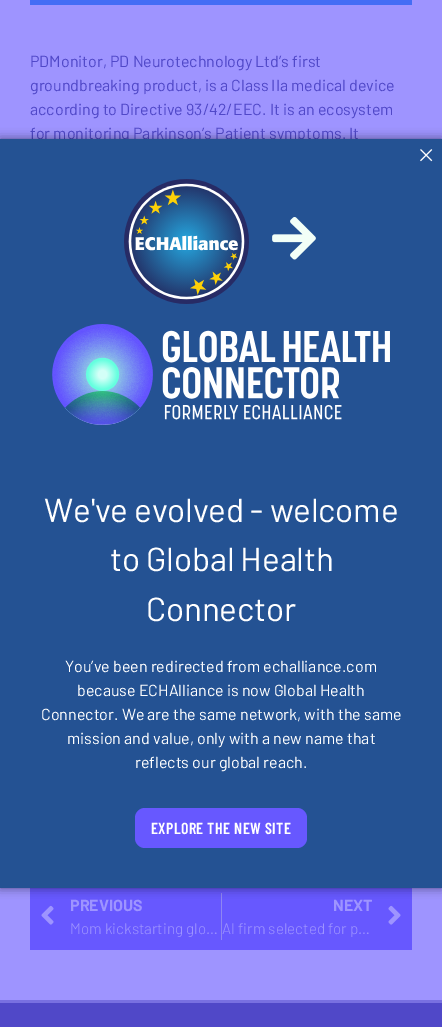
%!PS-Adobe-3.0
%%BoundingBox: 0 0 442 1027
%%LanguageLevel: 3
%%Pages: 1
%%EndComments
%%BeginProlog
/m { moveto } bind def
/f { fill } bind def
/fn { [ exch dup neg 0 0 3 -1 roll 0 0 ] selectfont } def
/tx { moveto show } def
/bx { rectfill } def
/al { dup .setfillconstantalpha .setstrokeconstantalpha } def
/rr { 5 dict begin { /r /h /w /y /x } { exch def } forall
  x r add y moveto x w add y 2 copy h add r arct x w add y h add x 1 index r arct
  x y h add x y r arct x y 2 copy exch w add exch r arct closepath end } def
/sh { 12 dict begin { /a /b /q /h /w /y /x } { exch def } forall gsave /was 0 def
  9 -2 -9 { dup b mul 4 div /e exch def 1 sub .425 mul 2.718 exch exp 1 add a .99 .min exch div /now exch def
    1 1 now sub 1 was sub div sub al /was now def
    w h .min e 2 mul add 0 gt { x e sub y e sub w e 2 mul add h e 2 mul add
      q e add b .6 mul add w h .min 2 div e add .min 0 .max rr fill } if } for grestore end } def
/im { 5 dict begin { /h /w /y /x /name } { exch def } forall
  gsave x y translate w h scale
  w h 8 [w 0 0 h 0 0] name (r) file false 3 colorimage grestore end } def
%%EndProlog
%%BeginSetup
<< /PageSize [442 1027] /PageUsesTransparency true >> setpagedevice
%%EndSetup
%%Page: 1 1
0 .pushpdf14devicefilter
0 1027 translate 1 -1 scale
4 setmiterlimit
0.62 0.58 1 setrgbcolor
0 0 442 1027 bx
0.267 0.427 0.961 setrgbcolor
30 0 382 5 bx
/Barlow-Regular 16 fn
0.314 0.282 0.784 setrgbcolor
(PDMonitor, PD Neurotechnology Ltd’s first) 30 67 tx
(groundbreaking product, is a Class IIa medical device) 30 91 tx
(according to Directive 93/42/EEC. It is an ecosystem) 30 115 tx
(for monitoring Parkinson’s Patient symptoms. It) 30 139 tx
0.404 0.345 1 setrgbcolor
30 888 382 62 bx
(image0.raw) 41 905 13 20 im
/Barlow-Bold 16 fn
0.62 0.58 1 setrgbcolor
(PREVIOUS) 70 911 tx
/Barlow-Light 15.25 fn
(Mom kickstarting glo…) 70 934 tx
0.561 0.525 0.949 setrgbcolor
221 893 1 47 bx
/Barlow-Bold 16 fn
0.62 0.58 1 setrgbcolor
(NEXT) 333 911 tx
/Barlow-Light 15.25 fn
(AI firm selected for p…) 222 934 tx
(image1.raw) 388 905 13 20 im
0 setgray
0 139 442 749 0 5 0.5 sh
0.141 0.322 0.576 setrgbcolor
0 139 442 749 bx
(image2.raw) 420 149 13 13 im
(image3.raw) 124 179 125 125 im
(image4.raw) 272 217 44 43 im
(image5.raw) 52 324 338 101 im
/Barlow-Regular 33.25 fn
1 setgray
44 522 m -0.2 0 (We've evolved - welcome) ashow
110 571 m -0.2 0 (to Global Health) ashow
146 621 m -0.2 0 (Connector) ashow
/Barlow-Regular 16 fn
(You’ve been redirected from echalliance.com) 65 672 tx
(because ECHAlliance is now Global Health) 77 696 tx
(Connector. We are the same network, with the same) 41 720 tx
(mission and value, only with a new name that) 67 744 tx
(reflects our global reach.) 135 768 tx
0.404 0.345 1 setrgbcolor
135 808 172 40 10 rr f
/BarlowCondensed-SemiBold 16 fn
1 setgray
151 834 m 0.4 0 (EXPLORE THE NEW SITE) ashow
0.314 0.282 0.784 setrgbcolor
0 1003 442 24 bx
0.475 0.439 0.882 setrgbcolor
0 1000 442 3 bx
.poppdf14devicefilter showpage
%%EOF
